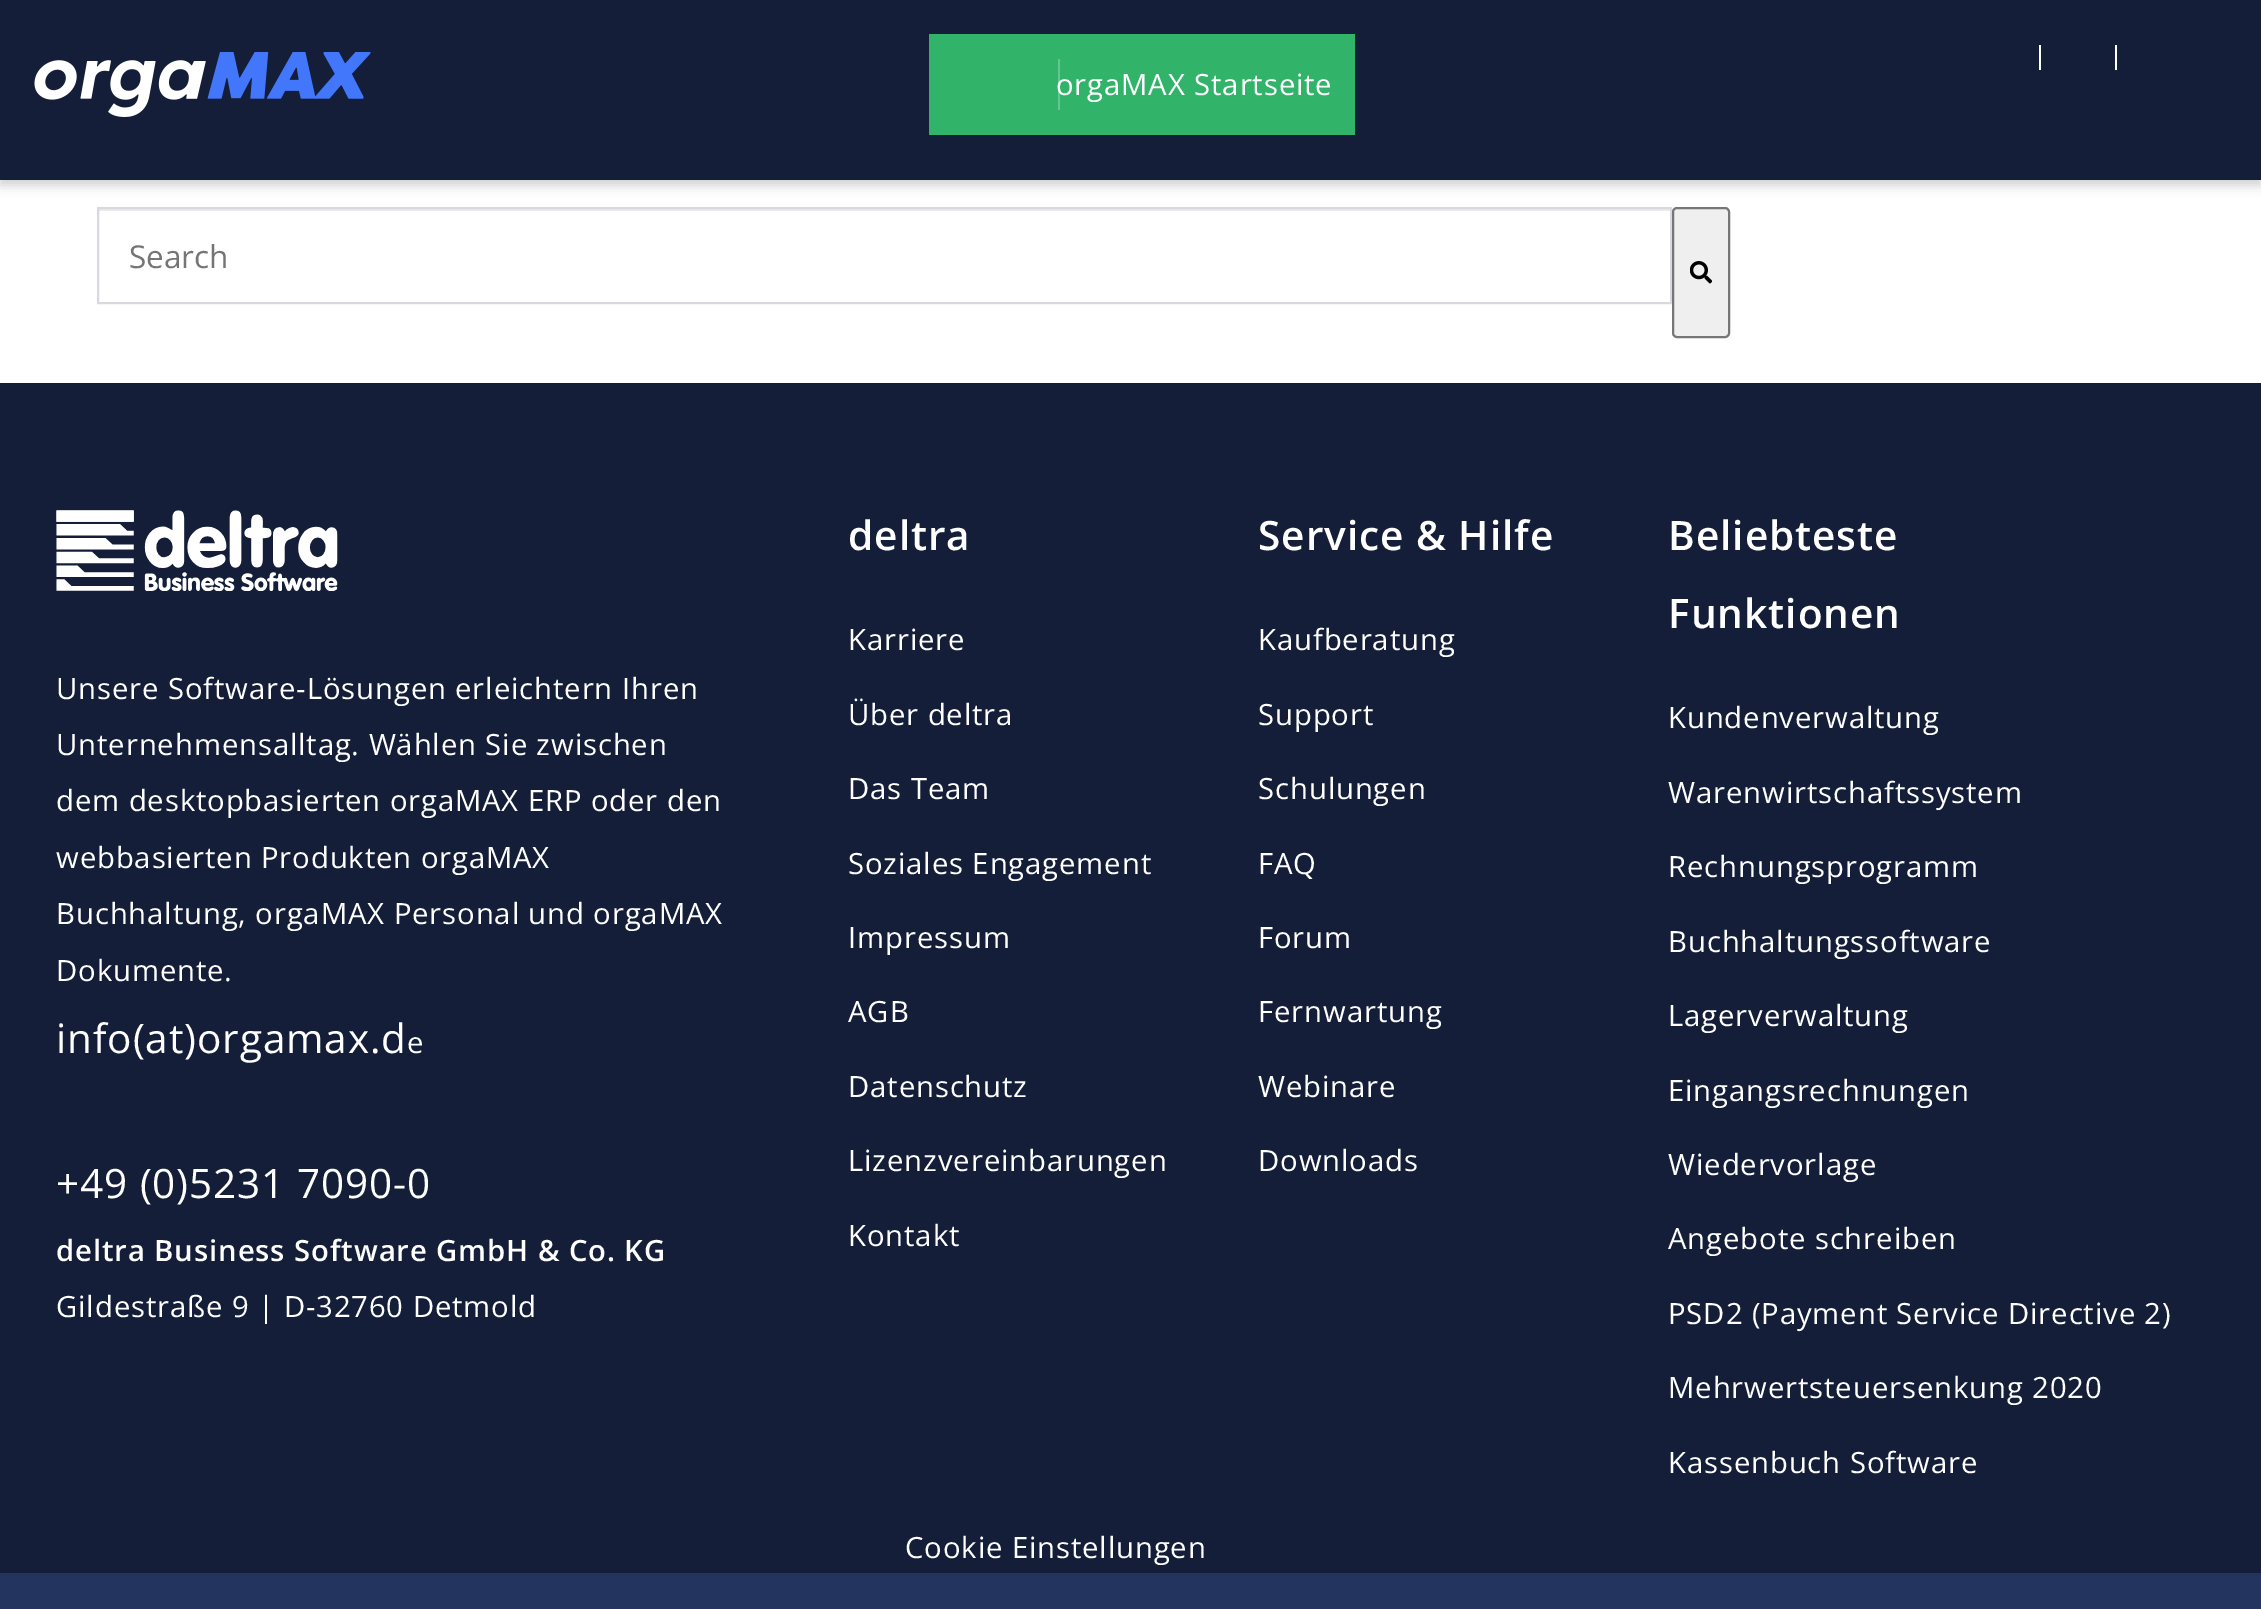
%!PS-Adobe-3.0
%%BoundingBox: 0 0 2261 1609
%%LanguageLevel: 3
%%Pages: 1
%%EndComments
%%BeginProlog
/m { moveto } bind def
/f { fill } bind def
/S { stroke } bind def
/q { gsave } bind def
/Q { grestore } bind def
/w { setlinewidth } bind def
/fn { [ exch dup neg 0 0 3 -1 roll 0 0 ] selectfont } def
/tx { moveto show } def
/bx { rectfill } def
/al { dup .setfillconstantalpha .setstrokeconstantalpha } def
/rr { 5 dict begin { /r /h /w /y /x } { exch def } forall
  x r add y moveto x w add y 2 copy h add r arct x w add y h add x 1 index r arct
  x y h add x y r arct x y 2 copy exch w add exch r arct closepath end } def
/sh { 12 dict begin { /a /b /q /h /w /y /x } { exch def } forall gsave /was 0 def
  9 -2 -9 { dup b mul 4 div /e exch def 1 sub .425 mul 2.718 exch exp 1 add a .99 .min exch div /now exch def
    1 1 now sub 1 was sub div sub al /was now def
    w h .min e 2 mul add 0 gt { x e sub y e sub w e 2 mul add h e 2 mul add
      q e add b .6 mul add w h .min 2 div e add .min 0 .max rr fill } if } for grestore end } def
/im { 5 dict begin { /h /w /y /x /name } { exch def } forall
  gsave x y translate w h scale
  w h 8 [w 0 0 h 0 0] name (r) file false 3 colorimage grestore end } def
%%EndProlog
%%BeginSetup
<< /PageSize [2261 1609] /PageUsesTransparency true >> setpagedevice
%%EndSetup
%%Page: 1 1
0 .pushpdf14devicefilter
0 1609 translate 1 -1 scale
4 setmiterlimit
1 setgray
0 0 2261 1609 bx
0.043 0.043 0.051 setrgbcolor
0 5 2261 180 0 5.5 0.2 sh
0.078 0.118 0.224 setrgbcolor
0 0 2261 180 bx
(image0.raw) 34 52 337 65 im
0.192 0.702 0.412 setrgbcolor
929 34 426 101 bx
/OpenSans-Regular 29.25 fn
1 setgray
1056 95 m 0.9 0 (orgaMAX Startseite) ashow
0.25 al
1058 59 2 51 bx
1 al
2039 45 2 25 bx
2115 45 2 25 bx
0.925 setgray
99 209 1571 2 bx
0.847 0.847 0.882 setrgbcolor
2 w
98 208 1573 95 rectstroke
/OpenSans-Regular 31.5 fn
0.459 setgray
(Search) 129 268 tx
0.937 setgray
1673 208 56 129 4 rr q f Q
0.463 setgray
S
(image1.raw) 1690 261 22 23 im
0.078 0.118 0.224 setrgbcolor
0 383 2261 1190 bx
(image2.raw) 56 510 282 81 im
/OpenSans-Regular 29.25 fn
1 setgray
56 699 m 0.9 0 (Unsere Software-Lösungen erleichtern Ihren) ashow
56 755 m 0.9 0 (Unternehmensalltag. Wählen Sie zwischen) ashow
56 811 m 0.9 0 (dem desktopbasierten orgaMAX ERP oder den) ashow
56 868 m 0.9 0 (webbasierten Produkten orgaMAX) ashow
56 924 m 0.9 0 (Buchhaltung, orgaMAX Personal und orgaMAX) ashow
56 981 m 0.9 0 (Dokumente.) ashow
/OpenSans-Regular 40.5 fn
56 1053 m 0.9 0 (info\(at\)orgamax.d) ashow
/OpenSans-Regular 29.25 fn
407 1053 m 0.9 0 (e) ashow
/OpenSans-Regular 40.5 fn
56 1198 m 0.9 0 (+49 \(0\)5231 7090-0) ashow
/OpenSans-SemiBold 29.25 fn
56 1261 m 0.9 0 (deltra Business Software GmbH & Co. KG) ashow
/OpenSans-Regular 29.25 fn
56 1317 m 0.9 0 (Gildestraße 9 | D-32760 Detmold) ashow
/OpenSans-SemiBold 40.5 fn
848 550 m 1 0 (deltra) ashow
/OpenSans-Regular 29.25 fn
848 650 m 0.9 0 (Karriere) ashow
848 725 m 0.9 0 (Über deltra) ashow
848 799 m 0.9 0 (Das Team) ashow
848 874 m 0.9 0 (Soziales Engagement) ashow
848 948 m 0.9 0 (Impressum) ashow
848 1022 m 0.9 0 (AGB) ashow
848 1097 m 0.9 0 (Datenschutz) ashow
848 1171 m 0.9 0 (Lizenzvereinbarungen) ashow
848 1246 m 0.9 0 (Kontakt) ashow
/OpenSans-SemiBold 40.5 fn
1258 550 m 1 0 (Service & Hilfe) ashow
/OpenSans-Regular 29.25 fn
1258 650 m 0.9 0 (Kaufberatung) ashow
1258 725 m 0.9 0 (Support) ashow
1258 799 m 0.9 0 (Schulungen) ashow
1258 874 m 0.9 0 (FAQ) ashow
1258 948 m 0.9 0 (Forum) ashow
1258 1022 m 0.9 0 (Fernwartung) ashow
1258 1097 m 0.9 0 (Webinare) ashow
1258 1171 m 0.9 0 (Downloads) ashow
/OpenSans-SemiBold 40.5 fn
1668 550 m 1 0 (Beliebteste) ashow
1668 628 m 1 0 (Funktionen) ashow
/OpenSans-Regular 29.25 fn
1668 728 m 0.9 0 (Kundenverwaltung) ashow
1668 803 m 0.9 0 (Warenwirtschaftssystem) ashow
1668 877 m 0.9 0 (Rechnungsprogramm) ashow
1668 952 m 0.9 0 (Buchhaltungssoftware) ashow
1668 1026 m 0.9 0 (Lagerverwaltung) ashow
1668 1101 m 0.9 0 (Eingangsrechnungen) ashow
1668 1175 m 0.9 0 (Wiedervorlage) ashow
1668 1249 m 0.9 0 (Angebote schreiben) ashow
1668 1324 m 0.9 0 (PSD2 \(Payment Service Directive 2\)) ashow
1668 1398 m 0.9 0 (Mehrwertsteuersenkung 2020) ashow
1668 1473 m 0.9 0 (Kassenbuch Software) ashow
905 1558 m 0.9 0 (Cookie Einstellungen) ashow
0.137 0.204 0.369 setrgbcolor
0 1573 2261 36 bx
.poppdf14devicefilter showpage
%%EOF
